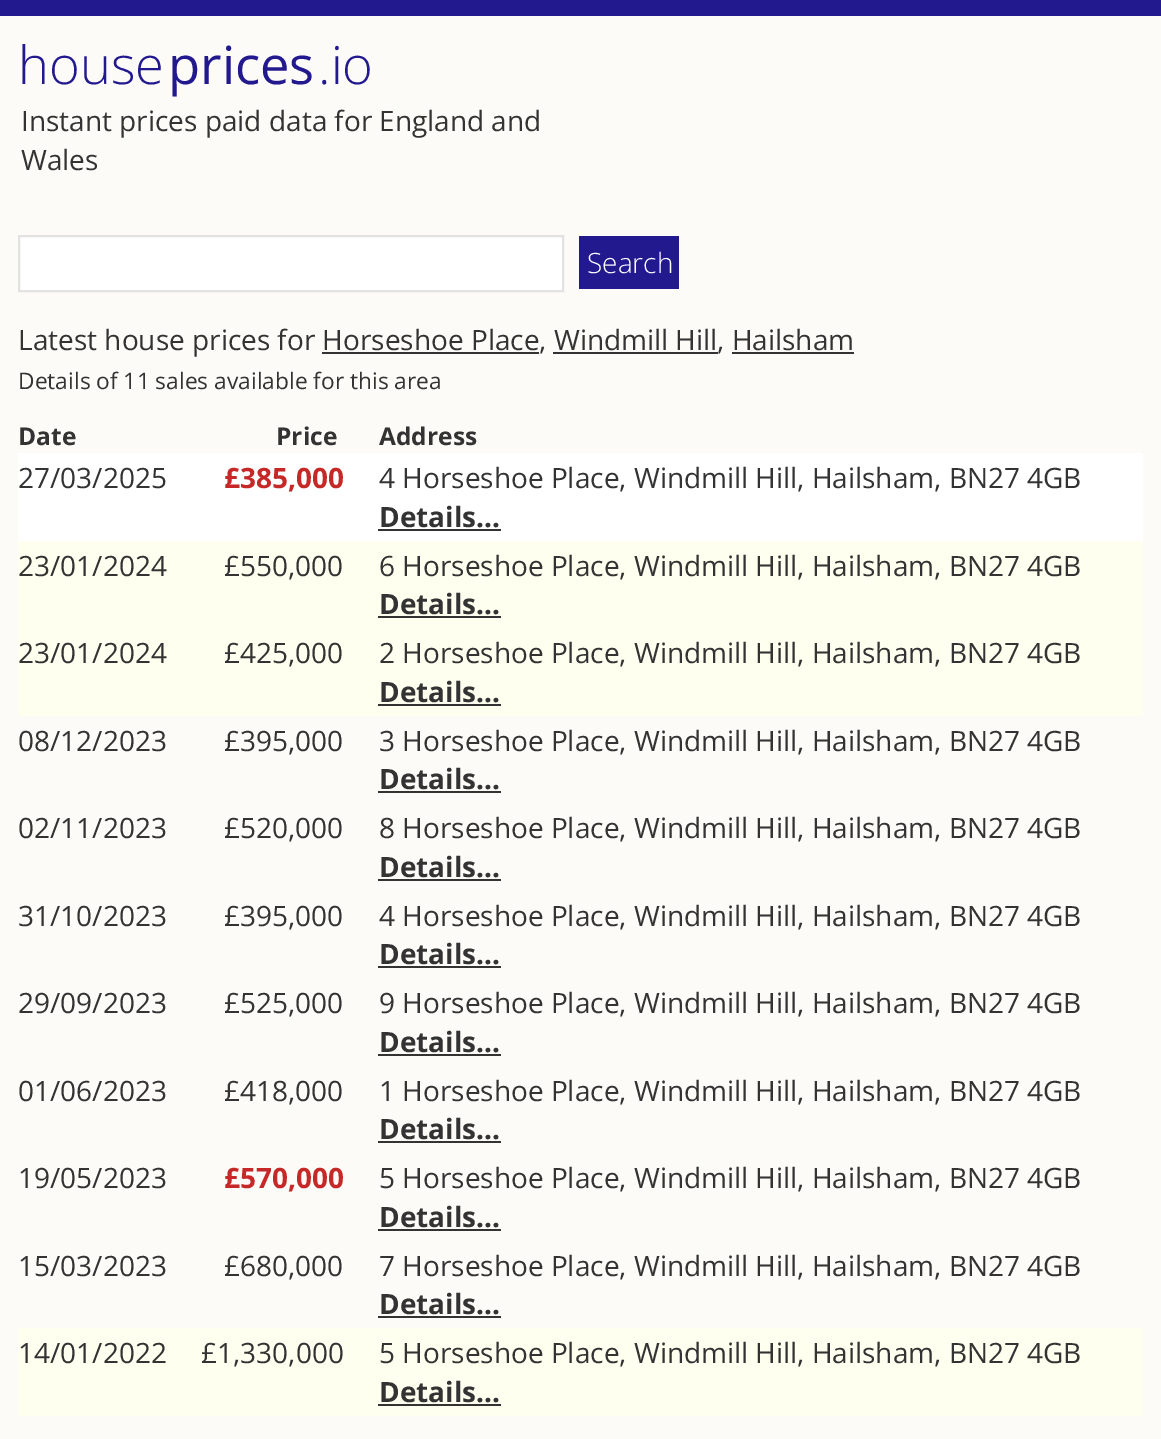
%!PS-Adobe-3.0
%%BoundingBox: 0 0 1161 1439
%%LanguageLevel: 3
%%Pages: 1
%%EndComments
%%BeginProlog
/m { moveto } bind def
/l { lineto } bind def
/h { closepath } bind def
/f { fill } bind def
/S { stroke } bind def
/q { gsave } bind def
/Q { grestore } bind def
/w { setlinewidth } bind def
/fn { [ exch dup neg 0 0 3 -1 roll 0 0 ] selectfont } def
/tx { moveto show } def
/bx { rectfill } def
%%EndProlog
%%BeginSetup
<< /PageSize [1161 1439] >> setpagedevice
%%EndSetup
%%Page: 1 1
0 1439 translate 1 -1 scale
4 setmiterlimit
0.992 0.984 0.973 setrgbcolor
0 0 1161 1439 bx
0.133 0.098 0.557 setrgbcolor
0 0 1161 16 bx
/OpenSans-Light 52.5 fn
(house) 18 84 tx
/OpenSans-Regular 52.5 fn
(prices) 168 84 tx
/OpenSans-Light 52.5 fn
(.io) 318 84 tx
/OpenSans-Regular 28 fn
0.2 setgray
(Instant prices paid data for England and) 21 131 tx
(Wales) 21 170 tx
1 setgray
19 236 m 563 236 l 563 291 l 19 291 l h q f Q
0.886 setgray
2 w
S
0.133 0.098 0.557 setrgbcolor
579 236 100 53 bx
/OpenSans-Light 28 fn
1 setgray
(Search) 587 273 tx
/OpenSans-Regular 28 fn
0.2 setgray
(Latest house prices for Horseshoe Place, Windmill Hill, Hailsham) 18 350 tx
322 352 217 2 bx
553 352 165 2 bx
732 352 122 2 bx
/OpenSans-Regular 22.75 fn
(Details of 11 sales available for this area) 18 389 tx
/OpenSans-Bold 24.5 fn
(Date) 18 445 tx
(Price) 276 445 tx
(Address) 379 445 tx
1 setgray
18 453 1125 88 bx
/OpenSans-Regular 28 fn
0.2 setgray
(27/03/2025) 18 488 tx
/OpenSans-Bold 28 fn
0.776 0.157 0.157 setrgbcolor
(£385,000) 224 488 tx
/OpenSans-Regular 28 fn
0.2 setgray
(4 Horseshoe Place, Windmill Hill, Hailsham, BN27 4GB) 379 488 tx
/OpenSans-Bold 28 fn
(Details...) 379 527 tx
378 529 123 2 bx
1 1 0.941 setrgbcolor
18 541 1125 175 bx
/OpenSans-Regular 28 fn
0.2 setgray
(23/01/2024) 18 576 tx
(£550,000) 224 576 tx
(6 Horseshoe Place, Windmill Hill, Hailsham, BN27 4GB) 379 576 tx
/OpenSans-Bold 28 fn
(Details...) 379 614 tx
378 616 123 2 bx
/OpenSans-Regular 28 fn
(23/01/2024) 18 663 tx
(£425,000) 224 663 tx
(2 Horseshoe Place, Windmill Hill, Hailsham, BN27 4GB) 379 663 tx
/OpenSans-Bold 28 fn
(Details...) 379 702 tx
378 704 123 2 bx
/OpenSans-Regular 28 fn
(08/12/2023) 18 751 tx
(£395,000) 224 751 tx
(3 Horseshoe Place, Windmill Hill, Hailsham, BN27 4GB) 379 751 tx
/OpenSans-Bold 28 fn
(Details...) 379 789 tx
378 791 123 2 bx
/OpenSans-Regular 28 fn
(02/11/2023) 18 838 tx
(£520,000) 224 838 tx
(8 Horseshoe Place, Windmill Hill, Hailsham, BN27 4GB) 379 838 tx
/OpenSans-Bold 28 fn
(Details...) 379 877 tx
378 879 123 2 bx
/OpenSans-Regular 28 fn
(31/10/2023) 18 926 tx
(£395,000) 224 926 tx
(4 Horseshoe Place, Windmill Hill, Hailsham, BN27 4GB) 379 926 tx
/OpenSans-Bold 28 fn
(Details...) 379 964 tx
378 966 123 2 bx
/OpenSans-Regular 28 fn
(29/09/2023) 18 1013 tx
(£525,000) 224 1013 tx
(9 Horseshoe Place, Windmill Hill, Hailsham, BN27 4GB) 379 1013 tx
/OpenSans-Bold 28 fn
(Details...) 379 1052 tx
378 1054 123 2 bx
/OpenSans-Regular 28 fn
(01/06/2023) 18 1101 tx
(£418,000) 224 1101 tx
(1 Horseshoe Place, Windmill Hill, Hailsham, BN27 4GB) 379 1101 tx
/OpenSans-Bold 28 fn
(Details...) 379 1139 tx
378 1141 123 2 bx
/OpenSans-Regular 28 fn
(19/05/2023) 18 1188 tx
/OpenSans-Bold 28 fn
0.776 0.157 0.157 setrgbcolor
(£570,000) 224 1188 tx
/OpenSans-Regular 28 fn
0.2 setgray
(5 Horseshoe Place, Windmill Hill, Hailsham, BN27 4GB) 379 1188 tx
/OpenSans-Bold 28 fn
(Details...) 379 1227 tx
378 1229 123 2 bx
/OpenSans-Regular 28 fn
(15/03/2023) 18 1276 tx
(£680,000) 224 1276 tx
(7 Horseshoe Place, Windmill Hill, Hailsham, BN27 4GB) 379 1276 tx
/OpenSans-Bold 28 fn
(Details...) 379 1314 tx
378 1316 123 2 bx
1 1 0.941 setrgbcolor
18 1328 1125 88 bx
/OpenSans-Regular 28 fn
0.2 setgray
(14/01/2022) 18 1363 tx
(£1,330,000) 201 1363 tx
(5 Horseshoe Place, Windmill Hill, Hailsham, BN27 4GB) 379 1363 tx
/OpenSans-Bold 28 fn
(Details...) 379 1402 tx
378 1404 123 2 bx
showpage
%%EOF
